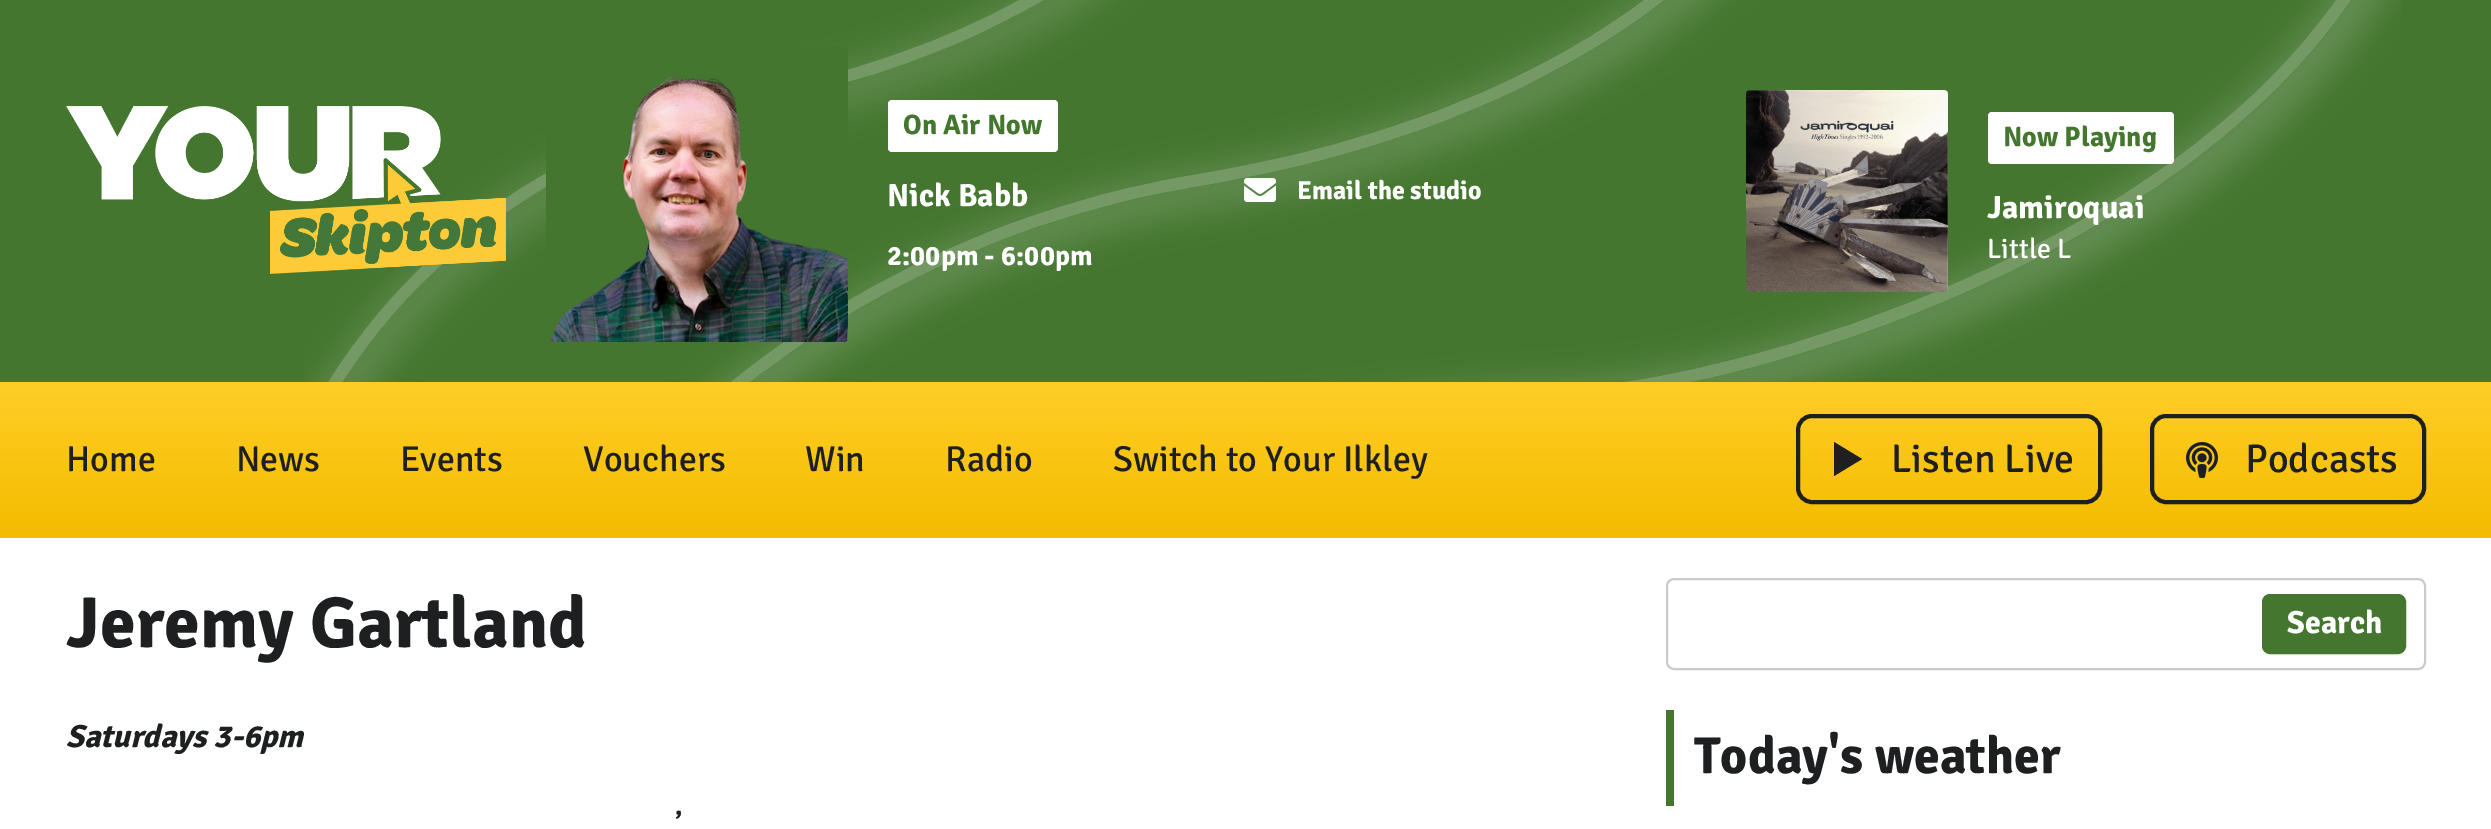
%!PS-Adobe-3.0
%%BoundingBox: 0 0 2491 829
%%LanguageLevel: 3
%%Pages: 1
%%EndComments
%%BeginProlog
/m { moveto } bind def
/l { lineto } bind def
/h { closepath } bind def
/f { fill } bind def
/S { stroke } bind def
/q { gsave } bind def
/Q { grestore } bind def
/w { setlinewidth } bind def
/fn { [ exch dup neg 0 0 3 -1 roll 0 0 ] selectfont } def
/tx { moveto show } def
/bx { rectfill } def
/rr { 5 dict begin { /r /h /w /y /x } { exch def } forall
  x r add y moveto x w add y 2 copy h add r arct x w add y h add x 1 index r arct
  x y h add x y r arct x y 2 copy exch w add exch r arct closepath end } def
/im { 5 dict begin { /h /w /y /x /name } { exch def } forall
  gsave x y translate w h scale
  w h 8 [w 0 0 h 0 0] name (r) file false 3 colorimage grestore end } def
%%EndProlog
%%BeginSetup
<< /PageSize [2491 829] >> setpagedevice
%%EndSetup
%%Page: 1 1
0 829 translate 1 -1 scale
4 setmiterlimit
1 setgray
0 0 2491 829 bx
0.267 0.463 0.184 setrgbcolor
0 0 2491 382 bx
(image0.raw) 304 0 2098 382 im
(image1.raw) 66 106 440 168 im
(image2.raw) 546 47 302 295 im
1 setgray
888 100 170 52 4 rr f
/Signika-Bold 28 fn
0.267 0.463 0.184 setrgbcolor
(On Air Now) 903 134 tx
/Signika-Bold 32 fn
1 setgray
(Nick Babb) 887 206 tx
/Signika-Bold 28 fn
(2:00pm - 6:00pm) 887 265 tx
(image3.raw) 1244 178 32 24 im
/Signika-Bold 26 fn
(Email the studio) 1297 199 tx
(image4.raw) 1746 90 202 202 im
1988 112 186 52 4 rr f
/Signika-Bold 28 fn
0.267 0.463 0.184 setrgbcolor
(Now Playing) 2003 146 tx
/Signika-Bold 32 fn
1 setgray
(Jamiroquai) 1987 218 tx
/Signika-Regular 28 fn
(Little L) 1987 258 tx
q 0 382 m 2491 382 l 2491 538 l 0 538 l h clip newpath
<< /ShadingType 2 /ColorSpace /DeviceRGB /Coords [1246 538 1246 382] /Extend [true true] /Function << /FunctionType 2 /Domain [0 1] /C0 [0.953 0.737 0] /C1 [1 0.808 0.153] /N 1 >> >> shfill Q
/Signika-Regular 36 fn
0.114 0.122 0.129 setrgbcolor
(Home) 66 471 tx
(News) 236 471 tx
(Events) 400 471 tx
(Vouchers) 583 471 tx
(Win) 805 471 tx
(Radio) 945 471 tx
(Switch to Your Ilkley) 1113 471 tx
4 w
1798 416 302 86 14 rr S
1862 459 m 1834 476 l 1834 442 l h eofill
/Signika-Regular 40 fn
(Listen Live) 1891 472 tx
2152 416 272 86 14 rr S
(image5.raw) 2186 442 32 36 im
(Podcasts) 2245 472 tx
/Signika-Bold 72 fn
(Jeremy Gartland) 66 647 tx
/Signika-BoldItalic 32 fn
(Saturdays 3-6pm) 66 747 tx
/Signika-Regular 32 fn
(’) 675 835 tx
0.796 setgray
2 w
1667 579 758 90 7 rr S
0.267 0.463 0.184 setrgbcolor
2264 596 140 56 6 rr q f Q
4 w
S
/Signika-Bold 32 fn
1 setgray
(Search) 2287 633 tx
0.267 0.463 0.184 setrgbcolor
1666 710 8 96 bx
/Signika-Bold 52 fn
0.114 0.122 0.129 setrgbcolor
(Today's weather) 1694 773 tx
showpage
%%EOF
